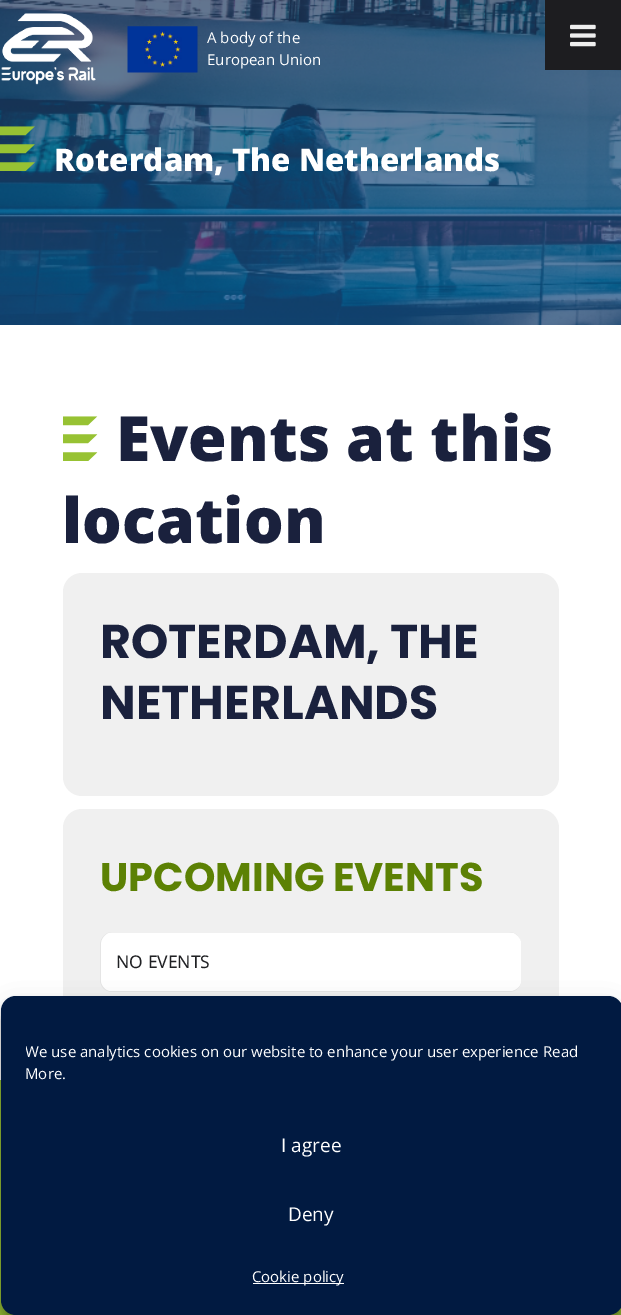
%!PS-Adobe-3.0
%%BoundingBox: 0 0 621 1315
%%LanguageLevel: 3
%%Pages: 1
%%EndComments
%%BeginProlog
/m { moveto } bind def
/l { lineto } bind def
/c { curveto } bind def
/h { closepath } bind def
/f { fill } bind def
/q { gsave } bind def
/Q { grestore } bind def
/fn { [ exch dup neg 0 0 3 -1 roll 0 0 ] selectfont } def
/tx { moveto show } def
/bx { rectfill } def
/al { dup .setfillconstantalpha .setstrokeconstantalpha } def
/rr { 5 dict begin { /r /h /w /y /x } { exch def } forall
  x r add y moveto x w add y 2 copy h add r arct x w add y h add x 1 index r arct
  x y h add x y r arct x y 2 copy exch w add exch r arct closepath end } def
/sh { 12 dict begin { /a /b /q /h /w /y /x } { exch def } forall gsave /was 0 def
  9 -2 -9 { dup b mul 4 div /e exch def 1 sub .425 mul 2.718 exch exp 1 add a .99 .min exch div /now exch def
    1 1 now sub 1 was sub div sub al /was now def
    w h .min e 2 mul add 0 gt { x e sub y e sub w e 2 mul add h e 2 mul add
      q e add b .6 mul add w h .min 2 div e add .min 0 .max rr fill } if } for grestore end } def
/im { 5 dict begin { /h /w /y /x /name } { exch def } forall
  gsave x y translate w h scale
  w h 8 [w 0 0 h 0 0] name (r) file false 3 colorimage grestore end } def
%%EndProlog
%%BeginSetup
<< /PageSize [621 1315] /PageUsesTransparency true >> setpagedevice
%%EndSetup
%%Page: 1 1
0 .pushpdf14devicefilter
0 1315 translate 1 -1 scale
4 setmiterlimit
1 setgray
0 0 621 1315 bx
(image0.raw) 0 0 621 325 im
(image1.raw) 1 13 95 72 im
(image2.raw) 1 13 95 72 im
(image3.raw) 127 26 71 47 im
/OpenSans-Regular 15 fn
(A body of the) 207 43 tx
(European Union) 207 65 tx
(image4.raw) 0 126 35 45 im
/OpenSans-ExtraBold 31.25 fn
(Roterdam, The Netherlands) 54 171 tx
(image5.raw) 63 416 35 45 im
/OpenSans-ExtraBold 62.5 fn
0.102 0.129 0.239 setrgbcolor
(Events at this) 116 461 tx
(location) 62 543 tx
0.941 setgray
63 573 496 223 19 rr f
/Poppins-Bold 47.5 fn
0.102 0.129 0.239 setrgbcolor
(ROTERDAM, THE) 100 658 tx
(NETHERLANDS) 100 719 tx
0.941 setgray
63 809 496 234 19 rr f
/Poppins-Bold 40 fn
0.361 0.506 0.016 setrgbcolor
(UPCOMING EVENTS) 100 891 tx
0.898 setgray
112 932 m 509 932 l 516 932 521 938 521 945 c 521 980 l 521 987 516 992 509 992 c 112 992 l 106 992 100 987 100 980 c 100 945 l 100 938 106 932 112 932 c h 112 932 m 509 932 l 516 932 521 938 521 945 c 521 980 l 521 986 516 991 509 991 c 112 991 l 106 991 101 986 101 980 c 101 945 l 101 938 106 932 112 932 c h eofill
1 setgray
110 933 m 513 933 l 517 935 520 938 521 942 c 521 982 l 520 987 516 990 511 991 c 110 991 l 105 990 101 985 101 980 c 101 945 l 101 939 105 935 109 933 c h f
/NotoSans-Regular 17.5 fn
0.125 0.129 0.141 setrgbcolor
(NO EVENTS) 116 968 tx
0.592 0.761 0.2 setrgbcolor
0 1080 621 235 bx
0.114 0.114 0.125 setrgbcolor
545 0 76 70 bx
(image6.raw) 570 24 26 23 im
q
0 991 m 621 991 l 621 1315 l 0 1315 l h 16 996 m 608 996 l 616.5 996 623 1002.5 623 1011 c 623 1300 l 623 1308.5 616.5 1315 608 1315 c 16 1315 l 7.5 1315 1 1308.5 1 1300 c 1 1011 l 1 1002.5 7.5 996 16 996 c h eoclip newpath
0 setgray
1 1004 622 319 15 4 0.23 sh
Q
q
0 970 m 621 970 l 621 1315 l 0 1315 l h 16 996 m 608 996 l 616.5 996 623 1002.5 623 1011 c 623 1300 l 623 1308.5 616.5 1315 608 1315 c 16 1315 l 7.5 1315 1 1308.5 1 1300 c 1 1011 l 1 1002.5 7.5 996 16 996 c h eoclip newpath
0 setgray
1 1009 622 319 15 12.5 0.19 sh
Q
0.004 0.102 0.255 setrgbcolor
1 996 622 319 15 rr f
q
26 1040 572 51 rectclip
/OpenSans-Regular 15 fn
1 setgray
(We use analytics cookies on our website to enhance your user experience) 25 1057 tx
Q
/OpenSans-Regular 15 fn
1 setgray
(Read) 543 1057 tx
(More.) 25 1079 tx
/OpenSans-Regular 19 fn
(I agree) 281 1152 tx
(Deny) 288 1221 tx
253 1283 91 1 bx
/OpenSans-Regular 15 fn
(Cookie policy) 252 1282 tx
.poppdf14devicefilter showpage
%%EOF
